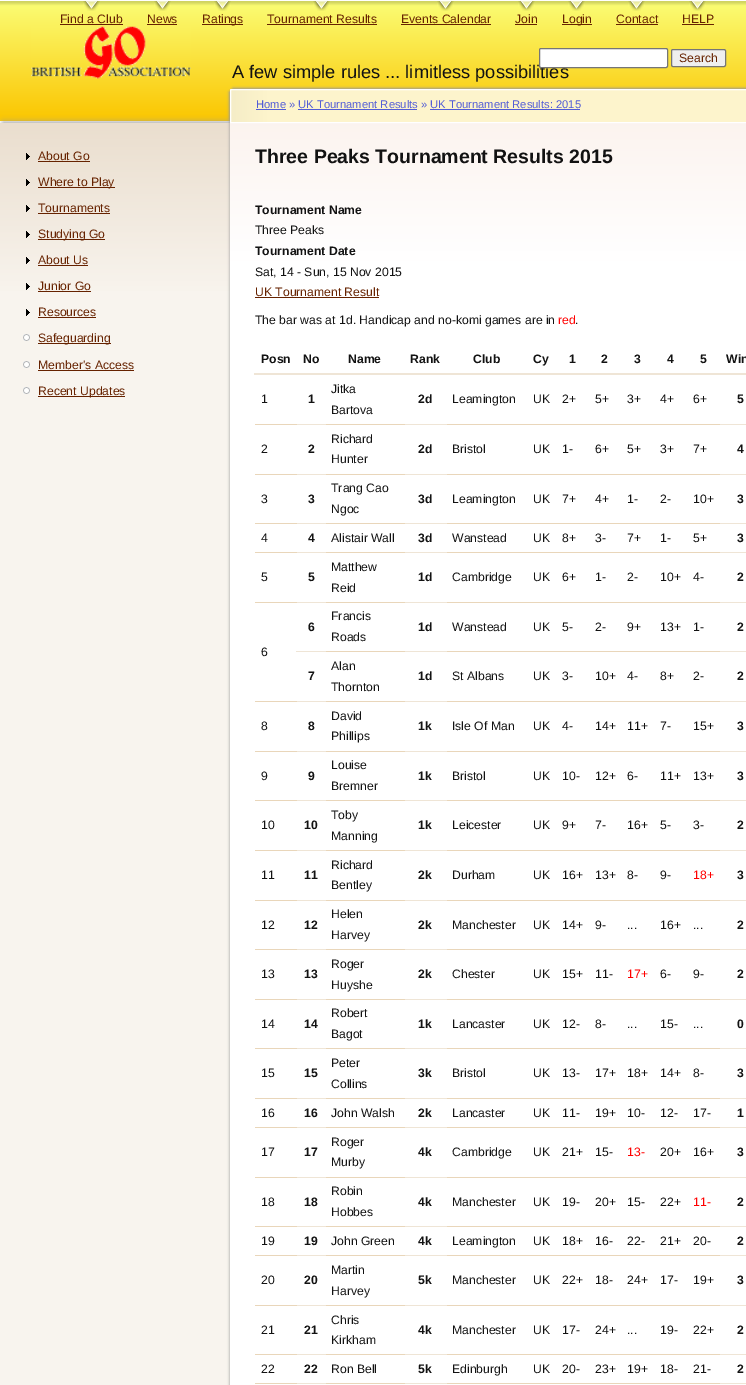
%!PS-Adobe-3.0
%%BoundingBox: 0 0 746 1385
%%LanguageLevel: 3
%%Pages: 1
%%EndComments
%%BeginProlog
/m { moveto } bind def
/l { lineto } bind def
/c { curveto } bind def
/h { closepath } bind def
/f { fill } bind def
/S { stroke } bind def
/q { gsave } bind def
/Q { grestore } bind def
/fn { [ exch dup neg 0 0 3 -1 roll 0 0 ] selectfont } def
/tx { moveto show } def
/bx { rectfill } def
/al { dup .setfillconstantalpha .setstrokeconstantalpha } def
/rr { 5 dict begin { /r /h /w /y /x } { exch def } forall
  x r add y moveto x w add y 2 copy h add r arct x w add y h add x 1 index r arct
  x y h add x y r arct x y 2 copy exch w add exch r arct closepath end } def
/sh { 12 dict begin { /a /b /q /h /w /y /x } { exch def } forall gsave /was 0 def
  9 -2 -9 { dup b mul 4 div /e exch def 1 sub .425 mul 2.718 exch exp 1 add a .99 .min exch div /now exch def
    1 1 now sub 1 was sub div sub al /was now def
    w h .min e 2 mul add 0 gt { x e sub y e sub w e 2 mul add h e 2 mul add
      q e add b .6 mul add w h .min 2 div e add .min 0 .max rr fill } if } for grestore end } def
/im { 5 dict begin { /h /w /y /x /name } { exch def } forall
  gsave x y translate w h scale
  w h 8 [w 0 0 h 0 0] name (r) file false 3 colorimage grestore end } def
%%EndProlog
%%BeginSetup
<< /PageSize [746 1385] /PageUsesTransparency true >> setpagedevice
%%EndSetup
%%Page: 1 1
0 .pushpdf14devicefilter
0 1385 translate 1 -1 scale
4 setmiterlimit
1 setgray
0 0 746 1385 bx
q 0 1 m 746 1 l 746 121 l 0 121 l h clip newpath
<< /ShadingType 2 /ColorSpace /DeviceRGB /Coords [373 1 373 121] /Extend [true true] /Function << /FunctionType 3 /Domain [0 1] /Functions [<< /FunctionType 2 /Domain [0 1] /C0 [0.816 0.827 0.38] /C1 [0.816 0.827 0.38] /N 1 >> << /FunctionType 2 /Domain [0 1] /C0 [0.816 0.827 0.38] /C1 [0.98 0.984 0.443] /N 1 >> << /FunctionType 2 /Domain [0 1] /C0 [0.98 0.984 0.443] /C1 [0.98 0.78 0.012] /N 1 >> << /FunctionType 2 /Domain [0 1] /C0 [0.98 0.78 0.012] /C1 [0.98 0.78 0.012] /N 1 >>] /Bounds [0.01 0.04 0.97] /Encode [0 1 0 1 0 1 0 1] >> >> shfill Q
(image0.raw) 83 1 17 10 im
/LiberationSans-Regular 12.2 fn
0.4 0.133 0 setrgbcolor
(Find a Club) 60 23 tx
60 24 63 1 bx
(image0.raw) 154 1 17 10 im
(News) 147 23 tx
147 24 30 1 bx
(image0.raw) 214 1 17 10 im
202 24 41 1 bx
(Ratings) 202 23 tx
(image0.raw) 313 1 17 10 im
(Tournament Results) 267 23 tx
267 24 110 1 bx
(image0.raw) 437 1 17 10 im
(Events Calendar) 401 23 tx
401 24 90 1 bx
(image0.raw) 518 1 17 10 im
(Join) 515 23 tx
515 24 22 1 bx
(image0.raw) 568 1 17 10 im
562 24 30 1 bx
(Login) 562 23 tx
(image0.raw) 628 1 17 10 im
(Contact) 616 23 tx
616 24 42 1 bx
(image0.raw) 689 1 17 10 im
(HELP) 682 23 tx
682 24 32 1 bx
/LiberationSans-Regular 18.25 fn
0.071 setgray
(A few simple rules ... limitless possibilities) 232 78 tx
1 setgray
539.5 48.5 128 19 1.5 rr q f Q
0.463 setgray
S
0.937 setgray
671.5 49.5 54 17 1.5 rr q f Q
0.463 setgray
S
/LiberationSans-Regular 12.2 fn
0.4 0.133 0 setrgbcolor
(Search) 679 62 tx
(image1.raw) 31 26 160 53 im
0.6 setgray
3 122 740 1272 0 3 1 sh
q 0 123 m 230 123 l 230 1385 l 0 1385 l h clip newpath
<< /ShadingType 2 /ColorSpace /DeviceRGB /Coords [373 123 373 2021] /Extend [true true] /Function << /FunctionType 3 /Domain [0 1] /Functions [<< /FunctionType 2 /Domain [0 1] /C0 [0.918 0.871 0.808] /C1 [0.973 0.957 0.933] /N 1 >> << /FunctionType 2 /Domain [0 1] /C0 [0.973 0.957 0.933] /C1 [0.973 0.957 0.933] /N 1 >>] /Bounds [0.09] /Encode [0 1 0 1] >> >> shfill Q
(image2.raw) 26 153 4 7 im
0.4 0.133 0 setrgbcolor
(About Go) 38 160 tx
38 161 52 1 bx
(image3.raw) 26 179 4 7 im
38 187 77 1 bx
(Where to Play) 38 186 tx
(image4.raw) 26 205 4 7 im
(Tournaments) 38 212 tx
38 213 72 1 bx
(image5.raw) 26 231 4 7 im
38 239 67 1 bx
(Studying Go) 38 238 tx
(image6.raw) 26 257 4 7 im
(About Us) 38 264 tx
38 265 50 1 bx
(image7.raw) 26 283 4 7 im
(Junior Go) 38 290 tx
38 291 53 1 bx
(image8.raw) 26 309 4 7 im
(Resources) 38 316 tx
38 317 58 1 bx
(image9.raw) 23 334 7 7 im
38 343 73 1 bx
(Safeguarding) 38 342 tx
(image9.raw) 23 361 7 7 im
(Member's Access) 38 369 tx
38 370 96 1 bx
(image9.raw) 23 387 7 7 im
38 396 87 1 bx
(Recent Updates) 38 395 tx
0.6 setgray
230 92 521 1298 0 1.5 1 sh
233 89 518 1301 0 1.5 1 sh
q 230 89 m 746 89 l 746 1385 l 230 1385 l h clip newpath
<< /ShadingType 2 /ColorSpace /DeviceRGB /Coords [547 89 547 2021] /Extend [true true] /Function << /FunctionType 3 /Domain [0 1] /Functions [<< /FunctionType 2 /Domain [0 1] /C0 [0.984 0.945 0.922] /C1 [1 1 1] /N 1 >> << /FunctionType 2 /Domain [0 1] /C0 [1 1 1] /C1 [1 1 1] /N 1 >>] /Bounds [0.09] /Encode [0 1 0 1] >> >> shfill Q
230 92 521 28 0 1.5 1 sh
233 89 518 28 0 1.5 1 sh
q 231 89 m 746 89 l 746 122 l 231 122 l h clip newpath
<< /ShadingType 2 /ColorSpace /DeviceRGB /Coords [231 106 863 106] /Extend [true true] /Function << /FunctionType 3 /Domain [0 1] /Functions [<< /FunctionType 2 /Domain [0 1] /C0 [0.961 0.929 0.78] /C1 [0.992 0.957 0.8] /N 1 >> << /FunctionType 2 /Domain [0 1] /C0 [0.992 0.957 0.8] /C1 [0.992 0.957 0.8] /N 1 >>] /Bounds [0.06] /Encode [0 1 0 1] >> >> shfill Q
1 setgray
232 89.5 m 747 89.5 l 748 89.5 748.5 90 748.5 91 c 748.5 122.5 l 230.5 122.5 l 230.5 91 l 230.5 90 231 89.5 232 89.5 c h S
/LiberationSans-Regular 11.2 fn
0.322 0.361 0.839 setrgbcolor
(Home » UK Tournament Results » UK Tournament Results: 2015) 256 108 tx
256 109 30 1 bx
298 109 119 1 bx
430 109 150 1 bx
/LiberationSans-Bold 19.5 fn
0.071 setgray
(Three Peaks Tournament Results 2015) 255 163 tx
/LiberationSans-Bold 12.2 fn
(Tournament Name) 255 214 tx
/LiberationSans-Regular 12.2 fn
(Three Peaks) 255 234 tx
/LiberationSans-Bold 12.2 fn
(Tournament Date) 255 255 tx
/LiberationSans-Regular 12.2 fn
(Sat, 14 - Sun, 15 Nov 2015) 255 276 tx
0.4 0.133 0 setrgbcolor
(UK Tournament Result) 255 296 tx
255 297 124 1 bx
0.071 setgray
(The bar was at 1d. Handicap and no-komi games are in) 255 324 tx
1 0 0 setrgbcolor
(red) 558 324 tx
0.071 setgray
(.) 575 324 tx
/LiberationSans-Bold 12.2 fn
(Posn) 261 363 tx
(No) 303 363 tx
(Name) 348 363 tx
(Rank) 410 363 tx
(Club) 473 363 tx
(Cy) 533 363 tx
(1) 569 363 tx
(2) 601 363 tx
(3) 634 363 tx
(4) 667 363 tx
(5) 700 363 tx
0.937 0.898 0.839 setrgbcolor
254 373 492 2 bx
0.071 setgray
(Win) 726 363 tx
0.937 0.898 0.839 setrgbcolor
719 424 27 1 bx
0.914 0.839 0.729 setrgbcolor
446 424 274 1 bx
0.937 0.898 0.839 setrgbcolor
404 424 43 1 bx
0.914 0.839 0.729 setrgbcolor
325 424 80 1 bx
0.937 0.898 0.839 setrgbcolor
296 424 30 1 bx
0.914 0.839 0.729 setrgbcolor
255 424 42 1 bx
/LiberationSans-Regular 12.2 fn
0.071 setgray
(1) 261 403 tx
/LiberationSans-Bold 12.2 fn
(1) 308 403 tx
/LiberationSans-Regular 12.2 fn
(Jitka) 331 393 tx
(Bartova) 331 414 tx
/LiberationSans-Bold 12.2 fn
(2d) 418 403 tx
/LiberationSans-Regular 12.2 fn
(Leamington) 452 403 tx
(UK) 533 403 tx
(2+) 562 403 tx
(5+) 595 403 tx
(3+) 627 403 tx
(4+) 660 403 tx
(6+) 693 403 tx
/LiberationSans-Bold 12.2 fn
(5) 737 403 tx
0.937 0.898 0.839 setrgbcolor
719 474 27 1 bx
0.914 0.839 0.729 setrgbcolor
446 474 274 1 bx
0.937 0.898 0.839 setrgbcolor
404 474 43 1 bx
0.914 0.839 0.729 setrgbcolor
325 474 80 1 bx
0.937 0.898 0.839 setrgbcolor
296 474 30 1 bx
0.914 0.839 0.729 setrgbcolor
255 474 42 1 bx
/LiberationSans-Regular 12.2 fn
0.071 setgray
(2) 261 453 tx
/LiberationSans-Bold 12.2 fn
(2) 308 453 tx
/LiberationSans-Regular 12.2 fn
(Richard) 331 443 tx
(Hunter) 331 463 tx
/LiberationSans-Bold 12.2 fn
(2d) 418 453 tx
/LiberationSans-Regular 12.2 fn
(Bristol) 452 453 tx
(UK) 533 453 tx
(1-) 562 453 tx
(6+) 595 453 tx
(5+) 627 453 tx
(3+) 660 453 tx
(7+) 693 453 tx
/LiberationSans-Bold 12.2 fn
(4) 737 453 tx
0.937 0.898 0.839 setrgbcolor
719 523 27 1 bx
0.914 0.839 0.729 setrgbcolor
446 523 274 1 bx
0.937 0.898 0.839 setrgbcolor
404 523 43 1 bx
0.914 0.839 0.729 setrgbcolor
325 523 80 1 bx
0.937 0.898 0.839 setrgbcolor
296 523 30 1 bx
0.914 0.839 0.729 setrgbcolor
255 523 42 1 bx
/LiberationSans-Regular 12.2 fn
0.071 setgray
(3) 261 503 tx
/LiberationSans-Bold 12.2 fn
(3) 308 503 tx
/LiberationSans-Regular 12.2 fn
(Trang Cao) 331 492 tx
(Ngoc) 331 513 tx
/LiberationSans-Bold 12.2 fn
(3d) 418 503 tx
/LiberationSans-Regular 12.2 fn
(Leamington) 452 503 tx
(UK) 533 503 tx
(7+) 562 503 tx
(4+) 595 503 tx
(1-) 627 503 tx
(2-) 660 503 tx
(10+) 693 503 tx
/LiberationSans-Bold 12.2 fn
(3) 737 503 tx
0.937 0.898 0.839 setrgbcolor
719 552 27 1 bx
0.914 0.839 0.729 setrgbcolor
446 552 274 1 bx
0.937 0.898 0.839 setrgbcolor
404 552 43 1 bx
0.914 0.839 0.729 setrgbcolor
325 552 80 1 bx
0.937 0.898 0.839 setrgbcolor
296 552 30 1 bx
0.914 0.839 0.729 setrgbcolor
255 552 42 1 bx
/LiberationSans-Regular 12.2 fn
0.071 setgray
(4) 261 542 tx
/LiberationSans-Bold 12.2 fn
(4) 308 542 tx
/LiberationSans-Regular 12.2 fn
(Alistair Wall) 331 542 tx
/LiberationSans-Bold 12.2 fn
(3d) 418 542 tx
/LiberationSans-Regular 12.2 fn
(Wanstead) 452 542 tx
(UK) 533 542 tx
(8+) 562 542 tx
(3-) 595 542 tx
(7+) 627 542 tx
(1-) 660 542 tx
(5+) 693 542 tx
/LiberationSans-Bold 12.2 fn
(3) 737 542 tx
0.937 0.898 0.839 setrgbcolor
719 602 27 1 bx
0.914 0.839 0.729 setrgbcolor
446 602 274 1 bx
0.937 0.898 0.839 setrgbcolor
404 602 43 1 bx
0.914 0.839 0.729 setrgbcolor
325 602 80 1 bx
0.937 0.898 0.839 setrgbcolor
296 602 30 1 bx
0.914 0.839 0.729 setrgbcolor
255 602 42 1 bx
/LiberationSans-Regular 12.2 fn
0.071 setgray
(5) 261 581 tx
/LiberationSans-Bold 12.2 fn
(5) 308 581 tx
/LiberationSans-Regular 12.2 fn
(Matthew) 331 571 tx
(Reid) 331 592 tx
/LiberationSans-Bold 12.2 fn
(1d) 418 581 tx
/LiberationSans-Regular 12.2 fn
(Cambridge) 452 581 tx
(UK) 533 581 tx
(6+) 562 581 tx
(1-) 595 581 tx
(2-) 627 581 tx
(10+) 660 581 tx
(4-) 693 581 tx
/LiberationSans-Bold 12.2 fn
(2) 737 581 tx
0.937 0.898 0.839 setrgbcolor
719 651 27 1 bx
0.914 0.839 0.729 setrgbcolor
446 651 274 1 bx
0.937 0.898 0.839 setrgbcolor
404 651 43 1 bx
0.914 0.839 0.729 setrgbcolor
325 651 80 1 bx
0.937 0.898 0.839 setrgbcolor
296 651 30 1 bx
0.071 setgray
(6) 308 631 tx
/LiberationSans-Regular 12.2 fn
(Francis) 331 620 tx
(Roads) 331 641 tx
/LiberationSans-Bold 12.2 fn
(1d) 418 631 tx
/LiberationSans-Regular 12.2 fn
(Wanstead) 452 631 tx
(UK) 533 631 tx
(5-) 562 631 tx
(2-) 595 631 tx
(9+) 627 631 tx
(13+) 660 631 tx
(1-) 693 631 tx
/LiberationSans-Bold 12.2 fn
(2) 737 631 tx
0.937 0.898 0.839 setrgbcolor
719 701 27 1 bx
0.914 0.839 0.729 setrgbcolor
446 701 274 1 bx
0.937 0.898 0.839 setrgbcolor
404 701 43 1 bx
0.914 0.839 0.729 setrgbcolor
325 701 80 1 bx
0.937 0.898 0.839 setrgbcolor
296 701 30 1 bx
0.914 0.839 0.729 setrgbcolor
255 701 42 1 bx
/LiberationSans-Regular 12.2 fn
0.071 setgray
(6) 261 656 tx
/LiberationSans-Bold 12.2 fn
(7) 308 680 tx
/LiberationSans-Regular 12.2 fn
(Alan) 331 670 tx
(Thornton) 331 691 tx
/LiberationSans-Bold 12.2 fn
(1d) 418 680 tx
/LiberationSans-Regular 12.2 fn
(St Albans) 452 680 tx
(UK) 533 680 tx
(3-) 562 680 tx
(10+) 595 680 tx
(4-) 627 680 tx
(8+) 660 680 tx
(2-) 693 680 tx
/LiberationSans-Bold 12.2 fn
(2) 737 680 tx
0.937 0.898 0.839 setrgbcolor
719 751 27 1 bx
0.914 0.839 0.729 setrgbcolor
446 751 274 1 bx
0.937 0.898 0.839 setrgbcolor
404 751 43 1 bx
0.914 0.839 0.729 setrgbcolor
325 751 80 1 bx
0.937 0.898 0.839 setrgbcolor
296 751 30 1 bx
0.914 0.839 0.729 setrgbcolor
255 751 42 1 bx
/LiberationSans-Regular 12.2 fn
0.071 setgray
(8) 261 730 tx
/LiberationSans-Bold 12.2 fn
(8) 308 730 tx
/LiberationSans-Regular 12.2 fn
(David) 331 720 tx
(Phillips) 331 740 tx
/LiberationSans-Bold 12.2 fn
(1k) 418 730 tx
/LiberationSans-Regular 12.2 fn
(Isle Of Man) 452 730 tx
(UK) 533 730 tx
(4-) 562 730 tx
(14+) 595 730 tx
(11+) 627 730 tx
(7-) 660 730 tx
(15+) 693 730 tx
/LiberationSans-Bold 12.2 fn
(3) 737 730 tx
0.937 0.898 0.839 setrgbcolor
719 800 27 1 bx
0.914 0.839 0.729 setrgbcolor
446 800 274 1 bx
0.937 0.898 0.839 setrgbcolor
404 800 43 1 bx
0.914 0.839 0.729 setrgbcolor
325 800 80 1 bx
0.937 0.898 0.839 setrgbcolor
296 800 30 1 bx
0.914 0.839 0.729 setrgbcolor
255 800 42 1 bx
/LiberationSans-Regular 12.2 fn
0.071 setgray
(9) 261 780 tx
/LiberationSans-Bold 12.2 fn
(9) 308 780 tx
/LiberationSans-Regular 12.2 fn
(Louise) 331 769 tx
(Bremner) 331 790 tx
/LiberationSans-Bold 12.2 fn
(1k) 418 780 tx
/LiberationSans-Regular 12.2 fn
(Bristol) 452 780 tx
(UK) 533 780 tx
(10-) 562 780 tx
(12+) 595 780 tx
(6-) 627 780 tx
(11+) 660 780 tx
(13+) 693 780 tx
/LiberationSans-Bold 12.2 fn
(3) 737 780 tx
0.937 0.898 0.839 setrgbcolor
719 850 27 1 bx
0.914 0.839 0.729 setrgbcolor
446 850 274 1 bx
0.937 0.898 0.839 setrgbcolor
404 850 43 1 bx
0.914 0.839 0.729 setrgbcolor
325 850 80 1 bx
0.937 0.898 0.839 setrgbcolor
296 850 30 1 bx
0.914 0.839 0.729 setrgbcolor
255 850 42 1 bx
/LiberationSans-Regular 12.2 fn
0.071 setgray
(10) 261 829 tx
/LiberationSans-Bold 12.2 fn
(10) 304 829 tx
/LiberationSans-Regular 12.2 fn
(Toby) 331 819 tx
(Manning) 331 840 tx
/LiberationSans-Bold 12.2 fn
(1k) 418 829 tx
/LiberationSans-Regular 12.2 fn
(Leicester) 452 829 tx
(UK) 533 829 tx
(9+) 562 829 tx
(7-) 595 829 tx
(16+) 627 829 tx
(5-) 660 829 tx
(3-) 693 829 tx
/LiberationSans-Bold 12.2 fn
(2) 737 829 tx
0.937 0.898 0.839 setrgbcolor
719 900 27 1 bx
0.914 0.839 0.729 setrgbcolor
446 900 274 1 bx
0.937 0.898 0.839 setrgbcolor
404 900 43 1 bx
0.914 0.839 0.729 setrgbcolor
325 900 80 1 bx
0.937 0.898 0.839 setrgbcolor
296 900 30 1 bx
0.914 0.839 0.729 setrgbcolor
255 900 42 1 bx
/LiberationSans-Regular 12.2 fn
0.071 setgray
(11) 261 879 tx
/LiberationSans-Bold 12.2 fn
(11) 304 879 tx
/LiberationSans-Regular 12.2 fn
(Richard) 331 869 tx
(Bentley) 331 889 tx
/LiberationSans-Bold 12.2 fn
(2k) 418 879 tx
/LiberationSans-Regular 12.2 fn
(Durham) 452 879 tx
(UK) 533 879 tx
(16+) 562 879 tx
(13+) 595 879 tx
(8-) 627 879 tx
(9-) 660 879 tx
1 0 0 setrgbcolor
(18+) 693 879 tx
/LiberationSans-Bold 12.2 fn
0.071 setgray
(3) 737 879 tx
0.937 0.898 0.839 setrgbcolor
719 949 27 1 bx
0.914 0.839 0.729 setrgbcolor
446 949 274 1 bx
0.937 0.898 0.839 setrgbcolor
404 949 43 1 bx
0.914 0.839 0.729 setrgbcolor
325 949 80 1 bx
0.937 0.898 0.839 setrgbcolor
296 949 30 1 bx
0.914 0.839 0.729 setrgbcolor
255 949 42 1 bx
/LiberationSans-Regular 12.2 fn
0.071 setgray
(12) 261 929 tx
/LiberationSans-Bold 12.2 fn
(12) 304 929 tx
/LiberationSans-Regular 12.2 fn
(Helen) 331 918 tx
(Harvey) 331 939 tx
/LiberationSans-Bold 12.2 fn
(2k) 418 929 tx
/LiberationSans-Regular 12.2 fn
(Manchester) 452 929 tx
(UK) 533 929 tx
(14+) 562 929 tx
(9-) 595 929 tx
(...) 627 929 tx
(16+) 660 929 tx
(...) 693 929 tx
/LiberationSans-Bold 12.2 fn
(2) 737 929 tx
0.937 0.898 0.839 setrgbcolor
719 999 27 1 bx
0.914 0.839 0.729 setrgbcolor
446 999 274 1 bx
0.937 0.898 0.839 setrgbcolor
404 999 43 1 bx
0.914 0.839 0.729 setrgbcolor
325 999 80 1 bx
0.937 0.898 0.839 setrgbcolor
296 999 30 1 bx
0.914 0.839 0.729 setrgbcolor
255 999 42 1 bx
/LiberationSans-Regular 12.2 fn
0.071 setgray
(13) 261 978 tx
/LiberationSans-Bold 12.2 fn
(13) 304 978 tx
/LiberationSans-Regular 12.2 fn
(Roger) 331 968 tx
(Huyshe) 331 989 tx
/LiberationSans-Bold 12.2 fn
(2k) 418 978 tx
/LiberationSans-Regular 12.2 fn
(Chester) 452 978 tx
(UK) 533 978 tx
(15+) 562 978 tx
(11-) 595 978 tx
1 0 0 setrgbcolor
(17+) 627 978 tx
0.071 setgray
(6-) 660 978 tx
(9-) 693 978 tx
/LiberationSans-Bold 12.2 fn
(2) 737 978 tx
0.937 0.898 0.839 setrgbcolor
719 1048 27 1 bx
0.914 0.839 0.729 setrgbcolor
446 1048 274 1 bx
0.937 0.898 0.839 setrgbcolor
404 1048 43 1 bx
0.914 0.839 0.729 setrgbcolor
325 1048 80 1 bx
0.937 0.898 0.839 setrgbcolor
296 1048 30 1 bx
0.914 0.839 0.729 setrgbcolor
255 1048 42 1 bx
/LiberationSans-Regular 12.2 fn
0.071 setgray
(14) 261 1028 tx
/LiberationSans-Bold 12.2 fn
(14) 304 1028 tx
/LiberationSans-Regular 12.2 fn
(Robert) 331 1017 tx
(Bagot) 331 1038 tx
/LiberationSans-Bold 12.2 fn
(1k) 418 1028 tx
/LiberationSans-Regular 12.2 fn
(Lancaster) 452 1028 tx
(UK) 533 1028 tx
(12-) 562 1028 tx
(8-) 595 1028 tx
(...) 627 1028 tx
(15-) 660 1028 tx
(...) 693 1028 tx
/LiberationSans-Bold 12.2 fn
(0) 737 1028 tx
0.937 0.898 0.839 setrgbcolor
719 1098 27 1 bx
0.914 0.839 0.729 setrgbcolor
446 1098 274 1 bx
0.937 0.898 0.839 setrgbcolor
404 1098 43 1 bx
0.914 0.839 0.729 setrgbcolor
325 1098 80 1 bx
0.937 0.898 0.839 setrgbcolor
296 1098 30 1 bx
0.914 0.839 0.729 setrgbcolor
255 1098 42 1 bx
/LiberationSans-Regular 12.2 fn
0.071 setgray
(15) 261 1077 tx
/LiberationSans-Bold 12.2 fn
(15) 304 1077 tx
/LiberationSans-Regular 12.2 fn
(Peter) 331 1067 tx
(Collins) 331 1088 tx
/LiberationSans-Bold 12.2 fn
(3k) 418 1077 tx
/LiberationSans-Regular 12.2 fn
(Bristol) 452 1077 tx
(UK) 533 1077 tx
(13-) 562 1077 tx
(17+) 595 1077 tx
(18+) 627 1077 tx
(14+) 660 1077 tx
(8-) 693 1077 tx
/LiberationSans-Bold 12.2 fn
(3) 737 1077 tx
0.937 0.898 0.839 setrgbcolor
719 1127 27 1 bx
0.914 0.839 0.729 setrgbcolor
446 1127 274 1 bx
0.937 0.898 0.839 setrgbcolor
404 1127 43 1 bx
0.914 0.839 0.729 setrgbcolor
325 1127 80 1 bx
0.937 0.898 0.839 setrgbcolor
296 1127 30 1 bx
0.914 0.839 0.729 setrgbcolor
255 1127 42 1 bx
/LiberationSans-Regular 12.2 fn
0.071 setgray
(16) 261 1117 tx
/LiberationSans-Bold 12.2 fn
(16) 304 1117 tx
/LiberationSans-Regular 12.2 fn
(John Walsh) 331 1117 tx
/LiberationSans-Bold 12.2 fn
(2k) 418 1117 tx
/LiberationSans-Regular 12.2 fn
(Lancaster) 452 1117 tx
(UK) 533 1117 tx
(11-) 562 1117 tx
(19+) 595 1117 tx
(10-) 627 1117 tx
(12-) 660 1117 tx
(17-) 693 1117 tx
/LiberationSans-Bold 12.2 fn
(1) 737 1117 tx
0.937 0.898 0.839 setrgbcolor
719 1177 27 1 bx
0.914 0.839 0.729 setrgbcolor
446 1177 274 1 bx
0.937 0.898 0.839 setrgbcolor
404 1177 43 1 bx
0.914 0.839 0.729 setrgbcolor
325 1177 80 1 bx
0.937 0.898 0.839 setrgbcolor
296 1177 30 1 bx
0.914 0.839 0.729 setrgbcolor
255 1177 42 1 bx
/LiberationSans-Regular 12.2 fn
0.071 setgray
(17) 261 1156 tx
/LiberationSans-Bold 12.2 fn
(17) 304 1156 tx
/LiberationSans-Regular 12.2 fn
(Roger) 331 1146 tx
(Murby) 331 1166 tx
/LiberationSans-Bold 12.2 fn
(4k) 418 1156 tx
/LiberationSans-Regular 12.2 fn
(Cambridge) 452 1156 tx
(UK) 533 1156 tx
(21+) 562 1156 tx
(15-) 595 1156 tx
1 0 0 setrgbcolor
(13-) 627 1156 tx
0.071 setgray
(20+) 660 1156 tx
(16+) 693 1156 tx
/LiberationSans-Bold 12.2 fn
(3) 737 1156 tx
0.937 0.898 0.839 setrgbcolor
719 1226 27 1 bx
0.914 0.839 0.729 setrgbcolor
446 1226 274 1 bx
0.937 0.898 0.839 setrgbcolor
404 1226 43 1 bx
0.914 0.839 0.729 setrgbcolor
325 1226 80 1 bx
0.937 0.898 0.839 setrgbcolor
296 1226 30 1 bx
0.914 0.839 0.729 setrgbcolor
255 1226 42 1 bx
/LiberationSans-Regular 12.2 fn
0.071 setgray
(18) 261 1206 tx
/LiberationSans-Bold 12.2 fn
(18) 304 1206 tx
/LiberationSans-Regular 12.2 fn
(Robin) 331 1195 tx
(Hobbes) 331 1216 tx
/LiberationSans-Bold 12.2 fn
(4k) 418 1206 tx
/LiberationSans-Regular 12.2 fn
(Manchester) 452 1206 tx
(UK) 533 1206 tx
(19-) 562 1206 tx
(20+) 595 1206 tx
(15-) 627 1206 tx
(22+) 660 1206 tx
1 0 0 setrgbcolor
(11-) 693 1206 tx
/LiberationSans-Bold 12.2 fn
0.071 setgray
(2) 737 1206 tx
0.937 0.898 0.839 setrgbcolor
719 1255 27 1 bx
0.914 0.839 0.729 setrgbcolor
446 1255 274 1 bx
0.937 0.898 0.839 setrgbcolor
404 1255 43 1 bx
0.914 0.839 0.729 setrgbcolor
325 1255 80 1 bx
0.937 0.898 0.839 setrgbcolor
296 1255 30 1 bx
0.914 0.839 0.729 setrgbcolor
255 1255 42 1 bx
/LiberationSans-Regular 12.2 fn
0.071 setgray
(19) 261 1245 tx
/LiberationSans-Bold 12.2 fn
(19) 304 1245 tx
/LiberationSans-Regular 12.2 fn
(John Green) 331 1245 tx
/LiberationSans-Bold 12.2 fn
(4k) 418 1245 tx
/LiberationSans-Regular 12.2 fn
(Leamington) 452 1245 tx
(UK) 533 1245 tx
(18+) 562 1245 tx
(16-) 595 1245 tx
(22-) 627 1245 tx
(21+) 660 1245 tx
(20-) 693 1245 tx
/LiberationSans-Bold 12.2 fn
(2) 737 1245 tx
0.937 0.898 0.839 setrgbcolor
719 1305 27 1 bx
0.914 0.839 0.729 setrgbcolor
446 1305 274 1 bx
0.937 0.898 0.839 setrgbcolor
404 1305 43 1 bx
0.914 0.839 0.729 setrgbcolor
325 1305 80 1 bx
0.937 0.898 0.839 setrgbcolor
296 1305 30 1 bx
0.914 0.839 0.729 setrgbcolor
255 1305 42 1 bx
/LiberationSans-Regular 12.2 fn
0.071 setgray
(20) 261 1284 tx
/LiberationSans-Bold 12.2 fn
(20) 304 1284 tx
/LiberationSans-Regular 12.2 fn
(Martin) 331 1274 tx
(Harvey) 331 1295 tx
/LiberationSans-Bold 12.2 fn
(5k) 418 1284 tx
/LiberationSans-Regular 12.2 fn
(Manchester) 452 1284 tx
(UK) 533 1284 tx
(22+) 562 1284 tx
(18-) 595 1284 tx
(24+) 627 1284 tx
(17-) 660 1284 tx
(19+) 693 1284 tx
/LiberationSans-Bold 12.2 fn
(3) 737 1284 tx
0.937 0.898 0.839 setrgbcolor
719 1354 27 1 bx
0.914 0.839 0.729 setrgbcolor
446 1354 274 1 bx
0.937 0.898 0.839 setrgbcolor
404 1354 43 1 bx
0.914 0.839 0.729 setrgbcolor
325 1354 80 1 bx
0.937 0.898 0.839 setrgbcolor
296 1354 30 1 bx
0.914 0.839 0.729 setrgbcolor
255 1354 42 1 bx
/LiberationSans-Regular 12.2 fn
0.071 setgray
(21) 261 1334 tx
/LiberationSans-Bold 12.2 fn
(21) 304 1334 tx
/LiberationSans-Regular 12.2 fn
(Chris) 331 1324 tx
(Kirkham) 331 1344 tx
/LiberationSans-Bold 12.2 fn
(4k) 418 1334 tx
/LiberationSans-Regular 12.2 fn
(Manchester) 452 1334 tx
(UK) 533 1334 tx
(17-) 562 1334 tx
(24+) 595 1334 tx
(...) 627 1334 tx
(19-) 660 1334 tx
(22+) 693 1334 tx
/LiberationSans-Bold 12.2 fn
(2) 737 1334 tx
0.937 0.898 0.839 setrgbcolor
719 1383 27 1 bx
0.914 0.839 0.729 setrgbcolor
446 1383 274 1 bx
0.937 0.898 0.839 setrgbcolor
404 1383 43 1 bx
0.914 0.839 0.729 setrgbcolor
325 1383 80 1 bx
0.937 0.898 0.839 setrgbcolor
296 1383 30 1 bx
0.914 0.839 0.729 setrgbcolor
255 1383 42 1 bx
/LiberationSans-Regular 12.2 fn
0.071 setgray
(22) 261 1373 tx
/LiberationSans-Bold 12.2 fn
(22) 304 1373 tx
/LiberationSans-Regular 12.2 fn
(Ron Bell) 331 1373 tx
/LiberationSans-Bold 12.2 fn
(5k) 418 1373 tx
/LiberationSans-Regular 12.2 fn
(Edinburgh) 452 1373 tx
(UK) 533 1373 tx
(20-) 562 1373 tx
(23+) 595 1373 tx
(19+) 627 1373 tx
(18-) 660 1373 tx
(21-) 693 1373 tx
/LiberationSans-Bold 12.2 fn
(2) 737 1373 tx
.poppdf14devicefilter showpage
%%EOF
